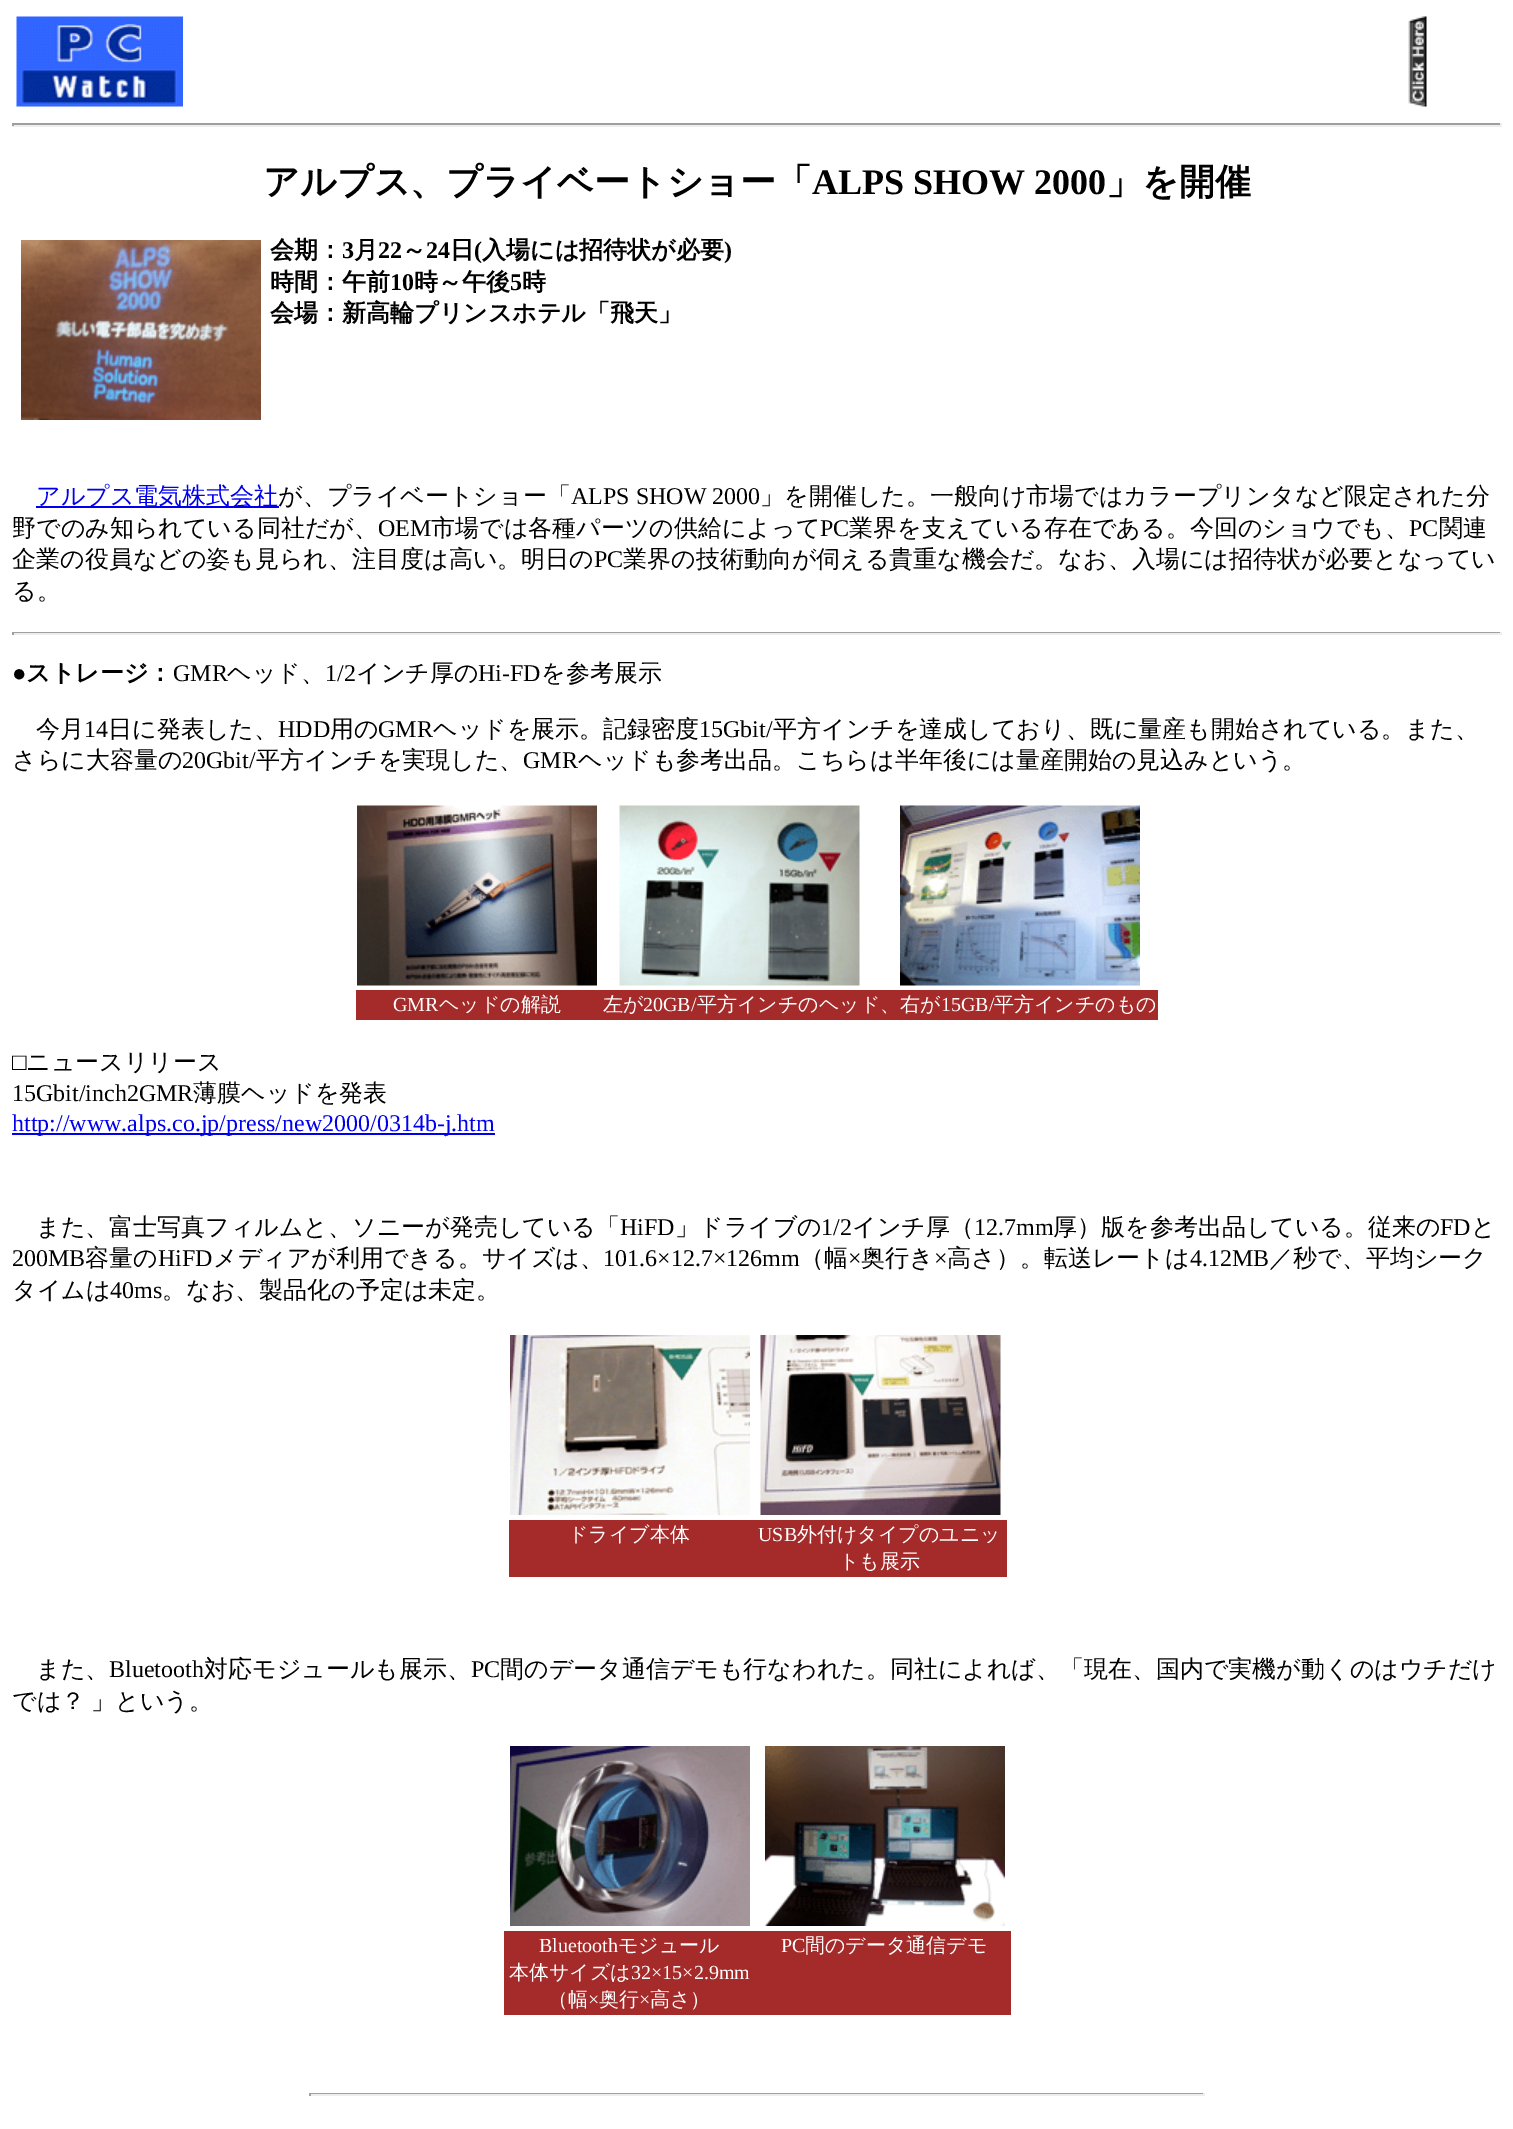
%!PS-Adobe-3.0
%%BoundingBox: 0 0 1513 2129
%%LanguageLevel: 3
%%Pages: 1
%%EndComments
%%BeginProlog
/m { moveto } bind def
/fn { [ exch dup neg 0 0 3 -1 roll 0 0 ] selectfont } def
/tx { moveto show } def
/bx { rectfill } def
/im { 5 dict begin { /h /w /y /x /name } { exch def } forall
  gsave x y translate w h scale
  w h 8 [w 0 0 h 0 0] name (r) file false 3 colorimage grestore end } def
%%EndProlog
%%BeginSetup
<< /PageSize [1513 2129] >> setpagedevice
%%EndSetup
%%Page: 1 1
0 2129 translate 1 -1 scale
4 setmiterlimit
1 setgray
0 0 1513 2129 bx
(image0.raw) 16 16 167 91 im
(image1.raw) 1408 16 19 91 im
0.624 setgray
12 123 1490 2 bx
0.933 setgray
1500 123 2 3 bx
12 125 1490 2 bx
0.624 setgray
12 123 2 3 bx
/WenQuanYiZenHei-Bold 36 fn
0 setgray
(アルプス、プライベートショー「) 263 194 tx
/LiberationSerif-Bold 36 fn
(ALPS SHOW 2000) 812 194 tx
/WenQuanYiZenHei-Bold 36 fn
(」を開催) 1106 194 tx
(image2.raw) 21 240 240 180 im
/WenQuanYiZenHei-Bold 24 fn
(会期：) 270 258 tx
/LiberationSerif-Bold 24 fn
(3) 342 258 tx
/WenQuanYiZenHei-Bold 24 fn
(月) 354 258 tx
/LiberationSerif-Bold 24 fn
(22) 378 258 tx
/WenQuanYiZenHei-Bold 24 fn
(～) 402 258 tx
/LiberationSerif-Bold 24 fn
(24) 426 258 tx
/WenQuanYiZenHei-Bold 24 fn
(日) 450 258 tx
/LiberationSerif-Bold 24 fn
(\() 474 258 tx
/WenQuanYiZenHei-Bold 24 fn
(入場には招待状が必要) 482 258 tx
/LiberationSerif-Bold 24 fn
(\)) 724 258 tx
/WenQuanYiZenHei-Bold 24 fn
(時間：午前) 270 290 tx
/LiberationSerif-Bold 24 fn
(10) 390 290 tx
/WenQuanYiZenHei-Bold 24 fn
(時～午後) 414 290 tx
/LiberationSerif-Bold 24 fn
(5) 510 290 tx
/WenQuanYiZenHei-Bold 24 fn
(時) 522 290 tx
(会場：新高輪プリンスホテル「飛天」) 270 321 tx
0 0 0.933 setrgbcolor
36 506 243 2 bx
/WenQuanYiZenHei-Medium 24 fn
(アルプス電気株式会社) 36 504 tx
0 setgray
(が、プライベートショー「) 278 504 tx
/LiberationSerif-Regular 24 fn
(ALPS SHOW 2000) 571 504 tx
/WenQuanYiZenHei-Medium 24 fn
(」を開催した。一般向け市場ではカラープリンタなど限定された分) 760 504 tx
(野でのみ知られている同社だが、) 12 536 tx
/LiberationSerif-Regular 24 fn
(OEM) 378 536 tx
/WenQuanYiZenHei-Medium 24 fn
(市場では各種パーツの供給によって) 431 536 tx
/LiberationSerif-Regular 24 fn
(PC) 820 536 tx
/WenQuanYiZenHei-Medium 24 fn
(業界を支えている存在である。今回のショウでも、) 849 536 tx
/LiberationSerif-Regular 24 fn
(PC) 1409 536 tx
/WenQuanYiZenHei-Medium 24 fn
(関連) 1439 536 tx
(企業の役員などの姿も見られ、注目度は高い。明日の) 12 567 tx
/LiberationSerif-Regular 24 fn
(PC) 594 567 tx
/WenQuanYiZenHei-Medium 24 fn
(業界の技術動向が伺える貴重な機会だ。なお、入場には招待状が必要となってい) 623 567 tx
(る。) 12 599 tx
0.624 setgray
12 632 1490 1 bx
0.933 setgray
1500 632 2 3 bx
12 633 1490 2 bx
0.624 setgray
12 632 2 3 bx
/LiberationSerif-Bold 24 fn
0 setgray
(●) 12 681 tx
/WenQuanYiZenHei-Bold 24 fn
(ストレージ：) 26 681 tx
/LiberationSerif-Regular 24 fn
(GMR) 173 681 tx
/WenQuanYiZenHei-Medium 24 fn
(ヘッド、) 227 681 tx
/LiberationSerif-Regular 24 fn
(1/2) 325 681 tx
/WenQuanYiZenHei-Medium 24 fn
(インチ厚の) 356 681 tx
/LiberationSerif-Regular 24 fn
(Hi-FD) 478 681 tx
/WenQuanYiZenHei-Medium 24 fn
(を参考展示) 541 681 tx
(今月) 36 737 tx
/LiberationSerif-Regular 24 fn
(14) 84 737 tx
/WenQuanYiZenHei-Medium 24 fn
(日に発表した、) 108 737 tx
/LiberationSerif-Regular 24 fn
(HDD) 278 737 tx
/WenQuanYiZenHei-Medium 24 fn
(用の) 330 737 tx
/LiberationSerif-Regular 24 fn
(GMR) 378 737 tx
/WenQuanYiZenHei-Medium 24 fn
(ヘッドを展示。記録密度) 433 737 tx
/LiberationSerif-Regular 24 fn
(15Gbit/) 699 737 tx
/WenQuanYiZenHei-Medium 24 fn
(平方インチを達成しており、既に量産も開始されている。また、) 773 737 tx
(さらに大容量の) 12 768 tx
/LiberationSerif-Regular 24 fn
(20Gbit/) 182 768 tx
/WenQuanYiZenHei-Medium 24 fn
(平方インチを実現した、) 256 768 tx
/LiberationSerif-Regular 24 fn
(GMR) 523 768 tx
/WenQuanYiZenHei-Medium 24 fn
(ヘッドも参考出品。こちらは半年後には量産開始の見込みという。) 578 768 tx
(image3.raw) 357 805 240 181 im
(image4.raw) 619 805 241 181 im
(image5.raw) 900 805 240 181 im
0.647 0.165 0.165 setrgbcolor
356 990 802 30 bx
/LiberationSerif-Regular 20 fn
1 setgray
(GMR) 393 1011 tx
/WenQuanYiZenHei-Medium 20 fn
(ヘッドの解説) 439 1011 tx
(左が) 603 1011 tx
/LiberationSerif-Regular 20 fn
(20GB/) 643 1011 tx
/WenQuanYiZenHei-Medium 20 fn
(平方インチのヘッド、右が) 697 1011 tx
/LiberationSerif-Regular 20 fn
(15GB/) 941 1011 tx
/WenQuanYiZenHei-Medium 20 fn
(平方インチのもの) 994 1011 tx
/LiberationSerif-Regular 24 fn
0 setgray
(□) 12 1070 tx
/WenQuanYiZenHei-Medium 24 fn
(ニュースリリース) 26 1070 tx
/LiberationSerif-Regular 24 fn
(15Gbit/inch2GMR) 12 1101 tx
/WenQuanYiZenHei-Medium 24 fn
(薄膜ヘッドを発表) 193 1101 tx
0 0 0.933 setrgbcolor
12 1133 483 2 bx
/LiberationSerif-Regular 24 fn
(http://www.alps.co.jp/press/new2000/0314b-j.htm) 12 1131 tx
/WenQuanYiZenHei-Medium 24 fn
0 setgray
(また、富士写真フィルムと、ソニーが発売している「) 36 1235 tx
/LiberationSerif-Regular 24 fn
(HiFD) 620 1235 tx
/WenQuanYiZenHei-Medium 24 fn
(」ドライブの) 675 1235 tx
/LiberationSerif-Regular 24 fn
(1/2) 821 1235 tx
/WenQuanYiZenHei-Medium 24 fn
(インチ厚（) 852 1235 tx
/LiberationSerif-Regular 24 fn
(12.7mm) 974 1235 tx
/WenQuanYiZenHei-Medium 24 fn
(厚）版を参考出品している。従来の) 1053 1235 tx
/LiberationSerif-Regular 24 fn
(FD) 1440 1235 tx
/WenQuanYiZenHei-Medium 24 fn
(と) 1471 1235 tx
/LiberationSerif-Regular 24 fn
(200MB) 12 1266 tx
/WenQuanYiZenHei-Medium 24 fn
(容量の) 85 1266 tx
/LiberationSerif-Regular 24 fn
(HiFD) 158 1266 tx
/WenQuanYiZenHei-Medium 24 fn
(メディアが利用できる。サイズは、) 213 1266 tx
/LiberationSerif-Regular 24 fn
(101.6×12.7×126mm) 603 1266 tx
/WenQuanYiZenHei-Medium 24 fn
(（幅) 800 1266 tx
/LiberationSerif-Regular 24 fn
(×) 848 1266 tx
/WenQuanYiZenHei-Medium 24 fn
(奥行き) 861 1266 tx
/LiberationSerif-Regular 24 fn
(×) 934 1266 tx
/WenQuanYiZenHei-Medium 24 fn
(高さ）。転送レートは) 947 1266 tx
/LiberationSerif-Regular 24 fn
(4.12MB) 1190 1266 tx
/WenQuanYiZenHei-Medium 24 fn
(／秒で、平均シーク) 1269 1266 tx
(タイムは) 12 1298 tx
/LiberationSerif-Regular 24 fn
(40ms) 110 1298 tx
/WenQuanYiZenHei-Medium 24 fn
(。なお、製品化の予定は未定。) 162 1298 tx
(image6.raw) 510 1335 240 180 im
(image7.raw) 760 1335 241 180 im
0.647 0.165 0.165 setrgbcolor
509 1520 498 57 bx
/WenQuanYiZenHei-Medium 20 fn
1 setgray
(ドライブ本体) 568 1541 tx
/LiberationSerif-Regular 20 fn
(USB) 758 1541 tx
/WenQuanYiZenHei-Medium 20 fn
(外付けタイプのユニッ) 797 1541 tx
(トも展示) 839 1568 tx
/WenQuanYiZenHei-Medium 24 fn
0 setgray
(また、) 36 1677 tx
/LiberationSerif-Regular 24 fn
(Bluetooth) 109 1677 tx
/WenQuanYiZenHei-Medium 24 fn
(対応モジュールも展示、) 204 1677 tx
/LiberationSerif-Regular 24 fn
(PC) 471 1677 tx
/WenQuanYiZenHei-Medium 24 fn
(間のデータ通信デモも行なわれた。同社によれば、「現在、国内で実機が動くのはウチだけ) 500 1677 tx
12 1709 m -1 0 32 (では？ 」という。) widthshow
(image8.raw) 510 1746 240 180 im
(image9.raw) 765 1746 240 180 im
0.647 0.165 0.165 setrgbcolor
504 1931 507 84 bx
/LiberationSerif-Regular 20 fn
1 setgray
(Bluetooth) 539 1952 tx
/WenQuanYiZenHei-Medium 20 fn
(モジュール) 618 1952 tx
(本体サイズは) 509 1979 tx
/LiberationSerif-Regular 20 fn
(32×15×2.9mm) 631 1979 tx
/WenQuanYiZenHei-Medium 20 fn
(（幅) 548 2006 tx
/LiberationSerif-Regular 20 fn
(×) 588 2006 tx
/WenQuanYiZenHei-Medium 20 fn
(奥行) 599 2006 tx
/LiberationSerif-Regular 20 fn
(×) 639 2006 tx
/WenQuanYiZenHei-Medium 20 fn
(高さ）) 650 2006 tx
/LiberationSerif-Regular 20 fn
(PC) 781 1952 tx
/WenQuanYiZenHei-Medium 20 fn
(間のデータ通信デモ) 805 1952 tx
0.624 setgray
309 2093 896 1 bx
0.933 setgray
1203 2093 2 3 bx
309 2094 896 2 bx
0.624 setgray
309 2093 2 3 bx
showpage
%%EOF
